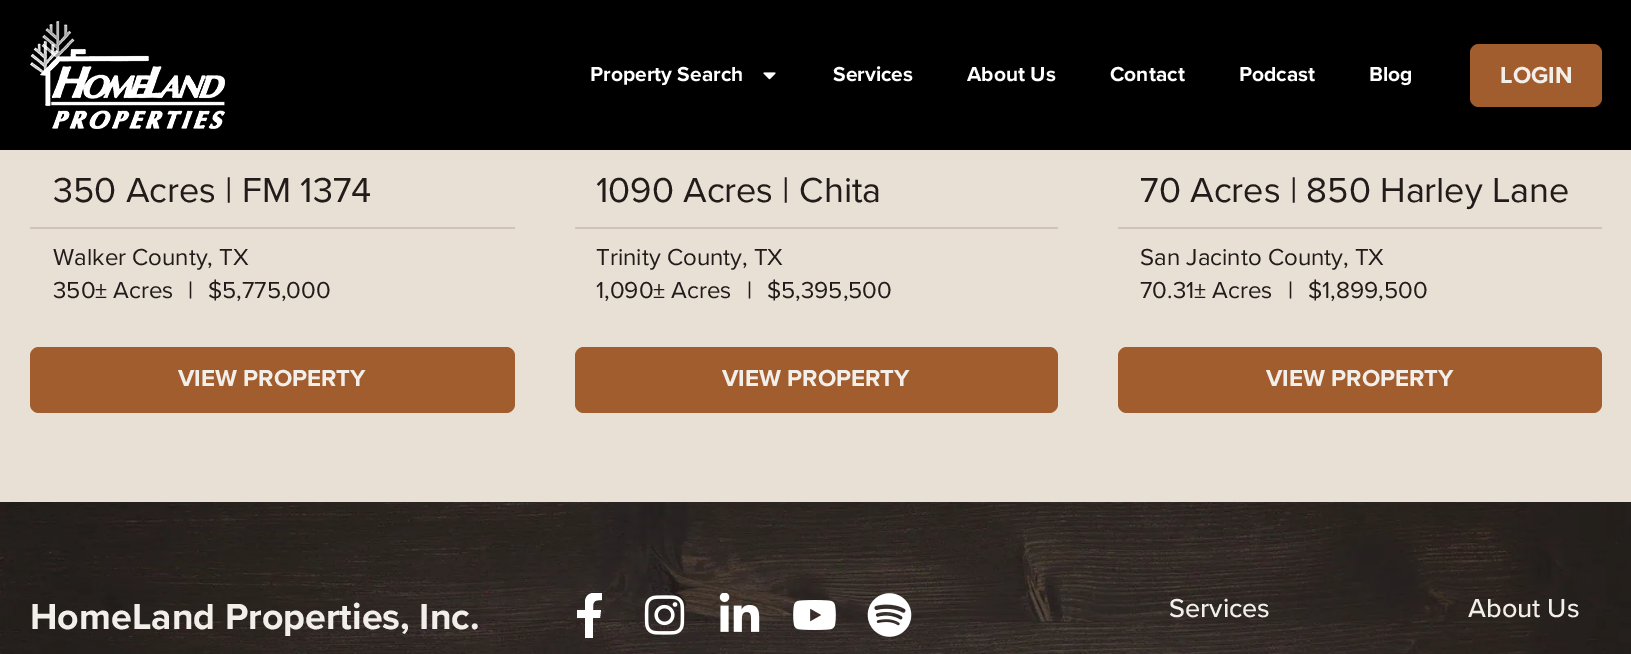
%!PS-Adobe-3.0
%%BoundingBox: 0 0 1631 654
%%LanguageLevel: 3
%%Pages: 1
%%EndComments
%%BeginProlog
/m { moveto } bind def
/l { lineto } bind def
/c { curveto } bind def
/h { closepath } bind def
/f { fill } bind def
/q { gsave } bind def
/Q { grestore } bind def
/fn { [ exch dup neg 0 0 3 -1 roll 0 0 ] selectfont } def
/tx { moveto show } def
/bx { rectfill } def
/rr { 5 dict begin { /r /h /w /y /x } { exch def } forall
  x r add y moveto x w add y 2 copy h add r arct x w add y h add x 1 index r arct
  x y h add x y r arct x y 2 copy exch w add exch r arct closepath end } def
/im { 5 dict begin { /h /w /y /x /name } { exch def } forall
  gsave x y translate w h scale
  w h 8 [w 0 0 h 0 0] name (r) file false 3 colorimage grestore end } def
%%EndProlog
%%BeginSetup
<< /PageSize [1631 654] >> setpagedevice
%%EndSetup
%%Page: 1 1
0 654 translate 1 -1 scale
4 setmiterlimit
0.91 0.875 0.835 setrgbcolor
0 0 1631 654 bx
0 setgray
0 0 1631 150 bx
(image0.raw) 30 21 195 108 im
/ProximaNova-Bold 21 fn
1 setgray
(Property Search) 590 81 tx
(image1.raw) 763 72 13 8 im
(Services) 833 81 tx
(About Us) 967 81 tx
(Contact) 1110 81 tx
(Podcast) 1239 81 tx
(Blog) 1369 81 tx
0.631 0.365 0.18 setrgbcolor
1470 44 132 63 9 rr f
/ProximaNova-Bold 24 fn
0.949 0.937 0.918 setrgbcolor
(LOGIN) 1500 83 tx
0.82 0.769 0.714 setrgbcolor
30 227 485 2 bx
/ProximaNova-Regular 36 fn
0.129 0.106 0.098 setrgbcolor
(350 Acres | FM 1374) 53 202 tx
/ProximaNova-Regular 24 fn
(Walker County, TX) 53 265 tx
(350± Acres) 53 298 tx
(|) 188 298 tx
($5,775,000) 208 298 tx
0.631 0.365 0.18 setrgbcolor
30 347 485 66 9 rr f
/ProximaNova-Bold 24 fn
0.949 0.937 0.918 setrgbcolor
(VIEW PROPERTY) 178 386 tx
0.82 0.769 0.714 setrgbcolor
575 227 483 2 bx
/ProximaNova-Regular 36 fn
0.129 0.106 0.098 setrgbcolor
(1090 Acres | Chita) 596 202 tx
/ProximaNova-Regular 24 fn
(Trinity County, TX) 596 265 tx
(1,090± Acres) 596 298 tx
(|) 747 298 tx
($5,395,500) 767 298 tx
0.631 0.365 0.18 setrgbcolor
575 347 483 66 9 rr f
/ProximaNova-Bold 24 fn
0.949 0.937 0.918 setrgbcolor
(VIEW PROPERTY) 722 386 tx
0.82 0.769 0.714 setrgbcolor
1118 227 484 2 bx
/ProximaNova-Regular 36 fn
0.129 0.106 0.098 setrgbcolor
(70 Acres | 850 Harley Lane) 1140 202 tx
/ProximaNova-Regular 24 fn
(San Jacinto County, TX) 1140 265 tx
(70.31± Acres) 1140 298 tx
(|) 1288 298 tx
($1,899,500) 1308 298 tx
0.631 0.365 0.18 setrgbcolor
1118 347 484 66 9 rr f
/ProximaNova-Bold 24 fn
0.949 0.937 0.918 setrgbcolor
(VIEW PROPERTY) 1266 386 tx
(image2.raw) 0 502 1631 152 im
/ProximaNova-Bold 37.5 fn
(HomeLand Properties, Inc.) 30 629 tx
q
567 593 45 45 rectclip
1 setgray
600 618 m 601 610 l 593 610 l 593 602 593 600 602 600 c 602 593 l 595 592 586 592 585 601 c 585 610 l 577 610 l 577 618 l 585 618 l 585 638 l 593 638 l 593 618 l h f
Q
(image3.raw) 644 595 41 40 im
(image4.raw) 719 593 41 39 im
(image5.raw) 793 600 43 30 im
(image6.raw) 867 593 45 44 im
/ProximaNova-Medium 27 fn
(Services) 1169 617 tx
(About Us) 1468 617 tx
showpage
%%EOF
